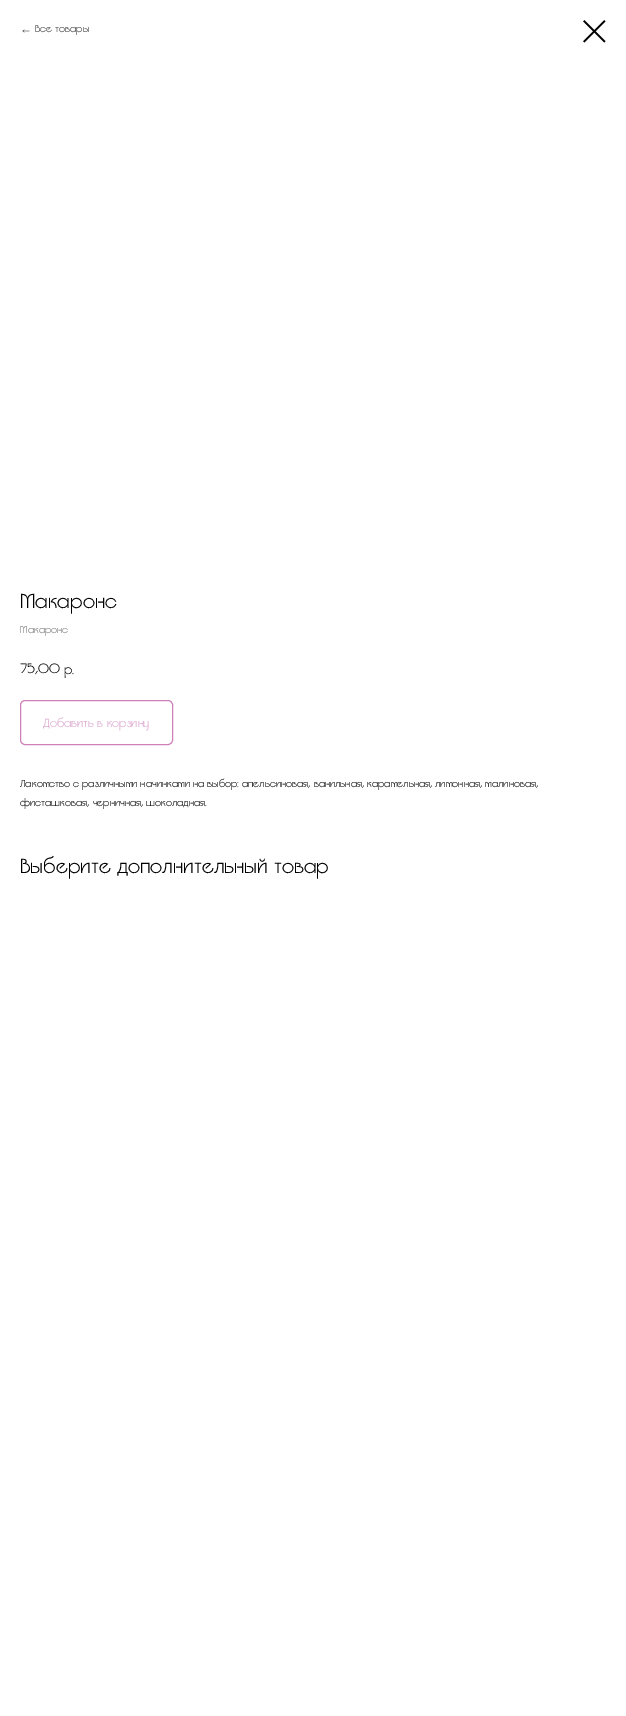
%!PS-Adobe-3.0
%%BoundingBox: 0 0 626 1716
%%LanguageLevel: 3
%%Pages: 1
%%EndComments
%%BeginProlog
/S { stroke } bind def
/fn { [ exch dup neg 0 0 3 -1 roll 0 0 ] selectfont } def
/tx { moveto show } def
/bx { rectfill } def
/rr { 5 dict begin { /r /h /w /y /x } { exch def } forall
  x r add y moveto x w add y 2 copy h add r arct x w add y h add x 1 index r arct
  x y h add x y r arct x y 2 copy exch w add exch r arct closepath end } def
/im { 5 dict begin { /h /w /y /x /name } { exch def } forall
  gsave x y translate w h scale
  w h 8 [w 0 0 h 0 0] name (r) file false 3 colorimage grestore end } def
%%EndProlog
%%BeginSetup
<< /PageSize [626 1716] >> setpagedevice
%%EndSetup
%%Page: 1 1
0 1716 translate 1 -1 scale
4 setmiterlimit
1 setgray
0 0 626 1716 bx
/LiberationSans-Regular 12 fn
0.2 setgray
(←) 20 33 tx
/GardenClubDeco-Regular 12 fn
(Все товары) 35 32 tx
(image0.raw) 583 20 23 23 im
/GardenClubDeco-Regular 24 fn
0 setgray
(Макаронс) 20 608 tx
/GardenClubDeco-Regular 12 fn
0.467 setgray
(Макаронс) 20 633 tx
/GardenClubDeco-Regular 16 fn
0 setgray
(75,00) 20 673 tx
(р.) 64 674 tx
0.812 0.502 0.733 setrgbcolor
20.5 700.5 152 44 4.5 rr S
/GardenClubDeco-Regular 14 fn
0.867 0.651 0.812 setrgbcolor
(Добавить в корзину) 43 727 tx
/GardenClubDeco-Regular 12 fn
0 setgray
(Лакомство с различными начинками на выбор: апельсиновая, ванильная, карамельная, лимонная, малиновая,) 20 787 tx
(фисташковая, черничная, шоколадная.) 20 806 tx
/GardenClubDeco-Regular 24 fn
(Выберите дополнительный товар) 20 873 tx
showpage
%%EOF
